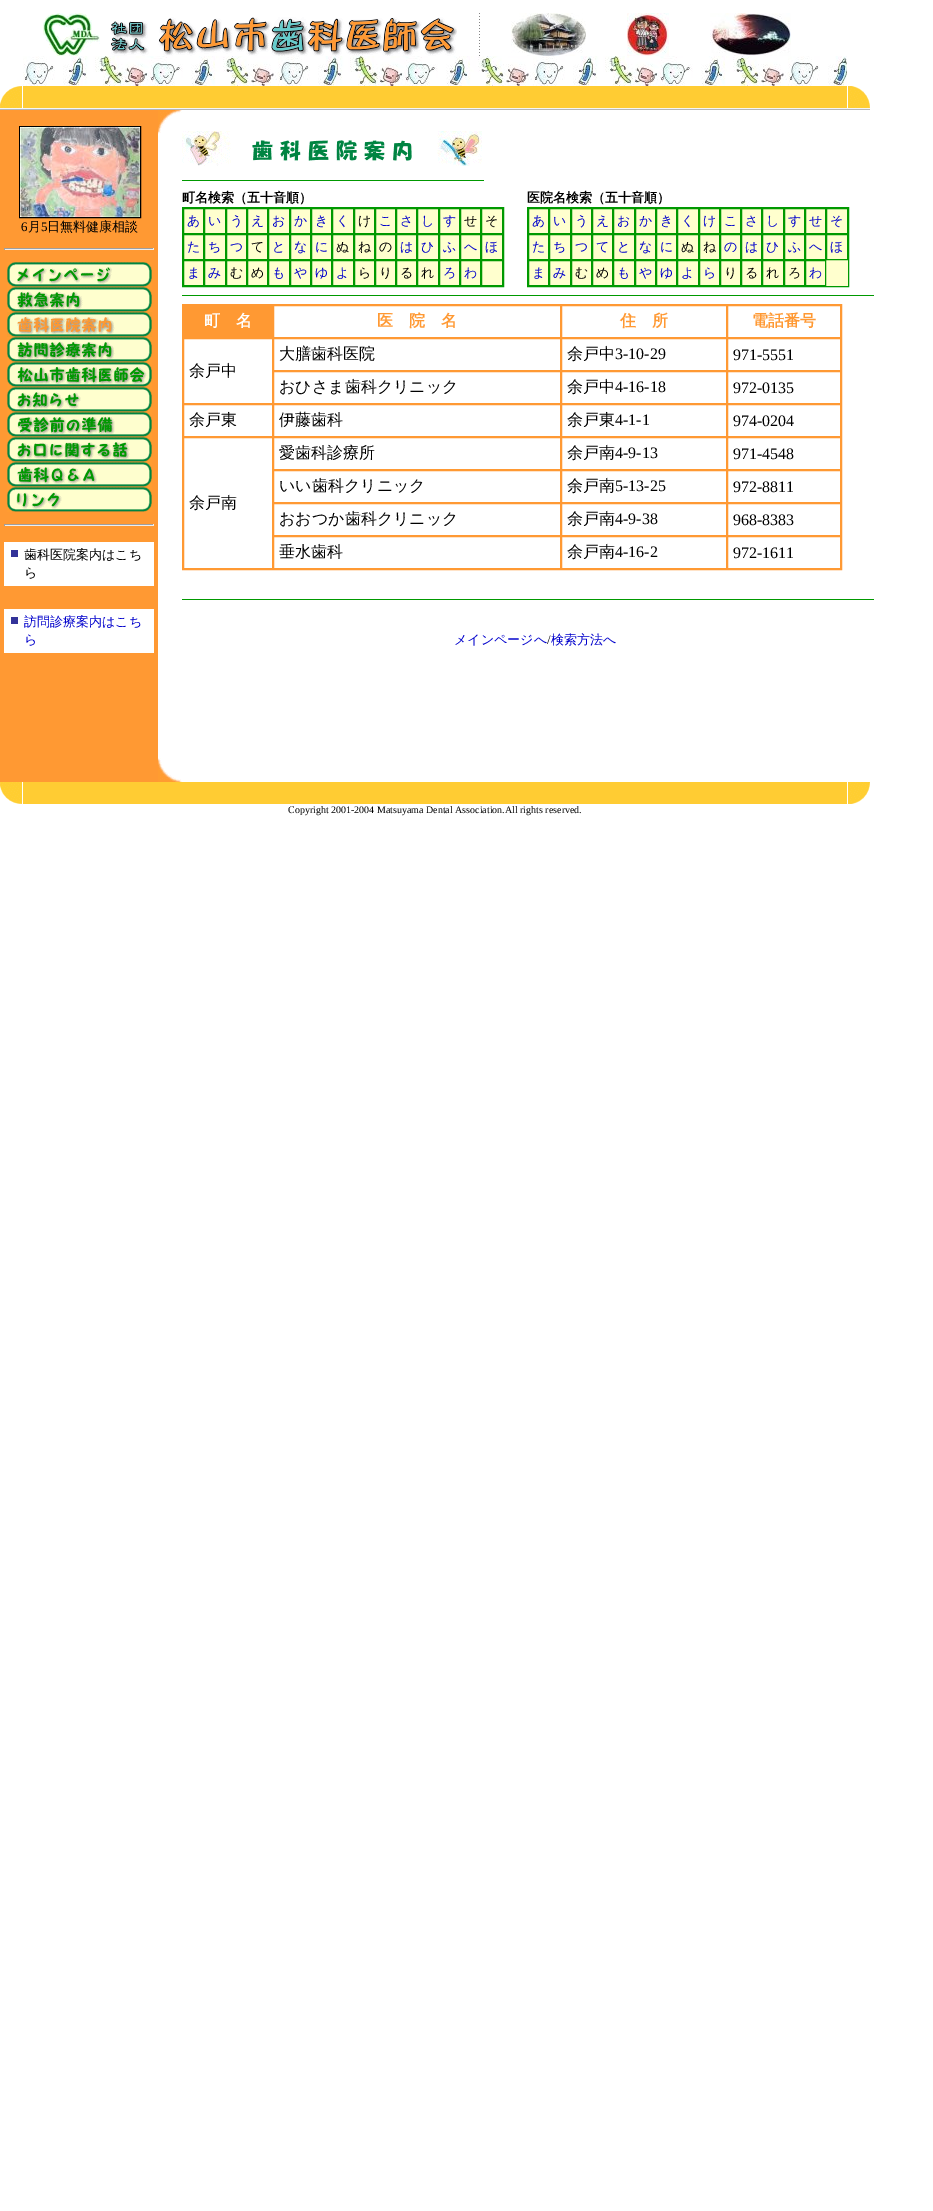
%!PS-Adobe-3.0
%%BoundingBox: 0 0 933 2211
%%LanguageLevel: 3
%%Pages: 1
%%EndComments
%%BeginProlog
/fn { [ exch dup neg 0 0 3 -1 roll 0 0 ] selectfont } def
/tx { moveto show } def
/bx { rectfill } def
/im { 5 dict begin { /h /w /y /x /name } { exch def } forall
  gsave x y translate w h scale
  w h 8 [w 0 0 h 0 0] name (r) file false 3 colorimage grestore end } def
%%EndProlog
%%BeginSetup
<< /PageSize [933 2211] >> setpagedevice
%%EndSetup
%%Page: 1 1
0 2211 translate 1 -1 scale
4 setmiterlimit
1 setgray
0 0 933 2211 bx
(image0.raw) 43 13 57 43 im
(image1.raw) 110 17 347 39 im
(image2.raw) 479 13 1 43 im
(image3.raw) 511 13 75 43 im
(image4.raw) 627 13 42 43 im
(image5.raw) 710 13 81 43 im
(image6.raw) 23 56 824 30 im
(image7.raw) 0 86 22 22 im
1 0.8 0.2 setrgbcolor
23 86 824 22 bx
(image8.raw) 848 86 22 22 im
0.961 setgray
0 108 870 1 bx
0.714 setgray
0 109 870 1 bx
(image9.raw) 158 110 24 24 im
1 0.6 0.2 setrgbcolor
0 110 158 672 bx
0 setgray
19.5 126.5 121 91 rectstroke
(image10.raw) 20 127 120 90 im
/LiberationSerif-Regular 13 fn
(6) 21 231 tx
/WenQuanYiZenHei-Medium 13 fn
(月) 28 231 tx
/LiberationSerif-Regular 13 fn
(5) 41 231 tx
/WenQuanYiZenHei-Medium 13 fn
(日無料健康相談) 47 231 tx
0.624 setgray
4 248 150 1 bx
0.933 setgray
153 248 1 2 bx
4 249 150 1 bx
0.624 setgray
4 248 1 2 bx
(image11.raw) 7 262 145 25 im
(image12.raw) 7 287 145 25 im
(image13.raw) 7 312 145 25 im
(image14.raw) 7 337 145 25 im
(image15.raw) 7 362 145 25 im
(image16.raw) 7 387 145 25 im
(image17.raw) 7 412 145 25 im
(image18.raw) 7 437 145 25 im
(image19.raw) 7 462 145 25 im
(image20.raw) 7 487 145 25 im
4 524 150 1 bx
0.933 setgray
153 524 1 2 bx
4 525 150 1 bx
0.624 setgray
4 524 1 2 bx
1 setgray
4 542 150 44 bx
0.2 0.2 0.6 setrgbcolor
11 550 7 7 bx
0 setgray
(歯科医院案内はこち) 24 559 tx
(ら) 24 577 tx
1 setgray
4 609 150 44 bx
0.2 0.2 0.6 setrgbcolor
11 617 7 7 bx
0 0 0.8 setrgbcolor
(訪問診療案内はこち) 24 626 tx
(ら) 24 644 tx
(image21.raw) 182 131 300 35 im
0 0.6 0 setrgbcolor
182 180 302 1 bx
/WenQuanYiZenHei-Bold 13 fn
0 setgray
(町名検索（五十音順）) 182 202 tx
1 1 0.808 setrgbcolor
184 209 318 76 bx
0 0.6 0 setrgbcolor
182.5 207.5 321 79 rectstroke
183.5 208.5 20 25 rectstroke
/WenQuanYiZenHei-Medium 13 fn
0 0 0.8 setrgbcolor
(あ) 187 225 tx
0 0.6 0 setrgbcolor
204.5 208.5 21 25 rectstroke
0 0 0.8 setrgbcolor
(い) 208 225 tx
0 0.6 0 setrgbcolor
226.5 208.5 20 25 rectstroke
0 0 0.8 setrgbcolor
(う) 230 225 tx
0 0.6 0 setrgbcolor
247.5 208.5 20 25 rectstroke
0 0 0.8 setrgbcolor
(え) 251 225 tx
0 0.6 0 setrgbcolor
268.5 208.5 21 25 rectstroke
0 0 0.8 setrgbcolor
(お) 272 225 tx
0 0.6 0 setrgbcolor
290.5 208.5 20 25 rectstroke
0 0 0.8 setrgbcolor
(か) 294 225 tx
0 0.6 0 setrgbcolor
311.5 208.5 20 25 rectstroke
0 0 0.8 setrgbcolor
(き) 315 225 tx
0 0.6 0 setrgbcolor
332.5 208.5 21 25 rectstroke
0 0 0.8 setrgbcolor
(く) 336 225 tx
0 0.6 0 setrgbcolor
354.5 208.5 20 25 rectstroke
0 setgray
(け) 358 225 tx
0 0.6 0 setrgbcolor
375.5 208.5 20 25 rectstroke
0 0 0.8 setrgbcolor
(こ) 379 225 tx
0 0.6 0 setrgbcolor
396.5 208.5 20 25 rectstroke
0 0 0.8 setrgbcolor
(さ) 400 225 tx
0 0.6 0 setrgbcolor
417.5 208.5 21 25 rectstroke
0 0 0.8 setrgbcolor
(し) 421 225 tx
0 0.6 0 setrgbcolor
439.5 208.5 20 25 rectstroke
0 0 0.8 setrgbcolor
(す) 443 225 tx
0 0.6 0 setrgbcolor
460.5 208.5 20 25 rectstroke
0 setgray
(せ) 464 225 tx
0 0.6 0 setrgbcolor
481.5 208.5 21 25 rectstroke
0 setgray
(そ) 485 225 tx
0 0.6 0 setrgbcolor
183.5 234.5 20 25 rectstroke
0 0 0.8 setrgbcolor
(た) 187 251 tx
0 0.6 0 setrgbcolor
204.5 234.5 21 25 rectstroke
0 0 0.8 setrgbcolor
(ち) 208 251 tx
0 0.6 0 setrgbcolor
226.5 234.5 20 25 rectstroke
0 0 0.8 setrgbcolor
(つ) 230 251 tx
0 0.6 0 setrgbcolor
247.5 234.5 20 25 rectstroke
0 setgray
(て) 251 251 tx
0 0.6 0 setrgbcolor
268.5 234.5 21 25 rectstroke
0 0 0.8 setrgbcolor
(と) 272 251 tx
0 0.6 0 setrgbcolor
290.5 234.5 20 25 rectstroke
0 0 0.8 setrgbcolor
(な) 294 251 tx
0 0.6 0 setrgbcolor
311.5 234.5 20 25 rectstroke
0 0 0.8 setrgbcolor
(に) 315 251 tx
0 0.6 0 setrgbcolor
332.5 234.5 21 25 rectstroke
0 setgray
(ぬ) 336 251 tx
0 0.6 0 setrgbcolor
354.5 234.5 20 25 rectstroke
0 setgray
(ね) 358 251 tx
0 0.6 0 setrgbcolor
375.5 234.5 20 25 rectstroke
0 setgray
(の) 379 251 tx
0 0.6 0 setrgbcolor
396.5 234.5 20 25 rectstroke
0 0 0.8 setrgbcolor
(は) 400 251 tx
0 0.6 0 setrgbcolor
417.5 234.5 21 25 rectstroke
0 0 0.8 setrgbcolor
(ひ) 421 251 tx
0 0.6 0 setrgbcolor
439.5 234.5 20 25 rectstroke
0 0 0.8 setrgbcolor
(ふ) 443 251 tx
0 0.6 0 setrgbcolor
460.5 234.5 20 25 rectstroke
0 0 0.8 setrgbcolor
(へ) 464 251 tx
0 0.6 0 setrgbcolor
481.5 234.5 21 25 rectstroke
0 0 0.8 setrgbcolor
(ほ) 485 251 tx
0 0.6 0 setrgbcolor
183.5 260.5 20 25 rectstroke
0 0 0.8 setrgbcolor
(ま) 187 277 tx
0 0.6 0 setrgbcolor
204.5 260.5 21 25 rectstroke
0 0 0.8 setrgbcolor
(み) 208 277 tx
0 0.6 0 setrgbcolor
226.5 260.5 20 25 rectstroke
0 setgray
(む) 230 277 tx
0 0.6 0 setrgbcolor
247.5 260.5 20 25 rectstroke
0 setgray
(め) 251 277 tx
0 0.6 0 setrgbcolor
268.5 260.5 21 25 rectstroke
0 0 0.8 setrgbcolor
(も) 272 277 tx
0 0.6 0 setrgbcolor
290.5 260.5 20 25 rectstroke
0 0 0.8 setrgbcolor
(や) 294 277 tx
0 0.6 0 setrgbcolor
311.5 260.5 20 25 rectstroke
0 0 0.8 setrgbcolor
(ゆ) 315 277 tx
0 0.6 0 setrgbcolor
332.5 260.5 21 25 rectstroke
0 0 0.8 setrgbcolor
(よ) 336 277 tx
0 0.6 0 setrgbcolor
354.5 260.5 20 25 rectstroke
0 setgray
(ら) 358 277 tx
0 0.6 0 setrgbcolor
375.5 260.5 20 25 rectstroke
0 setgray
(り) 379 277 tx
0 0.6 0 setrgbcolor
396.5 260.5 20 25 rectstroke
0 setgray
(る) 400 277 tx
0 0.6 0 setrgbcolor
417.5 260.5 21 25 rectstroke
0 setgray
(れ) 421 277 tx
0 0.6 0 setrgbcolor
439.5 260.5 20 25 rectstroke
0 0 0.8 setrgbcolor
(ろ) 443 277 tx
0 0.6 0 setrgbcolor
460.5 260.5 20 25 rectstroke
0 0 0.8 setrgbcolor
(わ) 464 277 tx
0 0.6 0 setrgbcolor
481.5 260.5 21 25 rectstroke
/WenQuanYiZenHei-Bold 13 fn
0 setgray
(医院名検索（五十音順）) 527 202 tx
1 1 0.808 setrgbcolor
529 209 319 77 bx
0 0.6 0 setrgbcolor
527.5 207.5 321 79 rectstroke
528.5 208.5 20 25 rectstroke
/WenQuanYiZenHei-Medium 13 fn
0 0 0.8 setrgbcolor
(あ) 532 225 tx
0 0.6 0 setrgbcolor
549.5 208.5 21 25 rectstroke
0 0 0.8 setrgbcolor
(い) 553 225 tx
0 0.6 0 setrgbcolor
571.5 208.5 20 25 rectstroke
0 0 0.8 setrgbcolor
(う) 575 225 tx
0 0.6 0 setrgbcolor
592.5 208.5 20 25 rectstroke
0 0 0.8 setrgbcolor
(え) 596 225 tx
0 0.6 0 setrgbcolor
613.5 208.5 21 25 rectstroke
0 0 0.8 setrgbcolor
(お) 617 225 tx
0 0.6 0 setrgbcolor
635.5 208.5 20 25 rectstroke
0 0 0.8 setrgbcolor
(か) 639 225 tx
0 0.6 0 setrgbcolor
656.5 208.5 20 25 rectstroke
0 0 0.8 setrgbcolor
(き) 660 225 tx
0 0.6 0 setrgbcolor
677.5 208.5 21 25 rectstroke
0 0 0.8 setrgbcolor
(く) 681 225 tx
0 0.6 0 setrgbcolor
699.5 208.5 20 25 rectstroke
0 0 0.8 setrgbcolor
(け) 703 225 tx
0 0.6 0 setrgbcolor
720.5 208.5 20 25 rectstroke
0 0 0.8 setrgbcolor
(こ) 724 225 tx
0 0.6 0 setrgbcolor
741.5 208.5 20 25 rectstroke
0 0 0.8 setrgbcolor
(さ) 745 225 tx
0 0.6 0 setrgbcolor
762.5 208.5 21 25 rectstroke
0 0 0.8 setrgbcolor
(し) 766 225 tx
0 0.6 0 setrgbcolor
784.5 208.5 20 25 rectstroke
0 0 0.8 setrgbcolor
(す) 788 225 tx
0 0.6 0 setrgbcolor
805.5 208.5 20 25 rectstroke
0 0 0.8 setrgbcolor
(せ) 809 225 tx
0 0.6 0 setrgbcolor
826.5 208.5 21 25 rectstroke
0 0 0.8 setrgbcolor
(そ) 830 225 tx
0 0.6 0 setrgbcolor
528.5 234.5 20 25 rectstroke
0 0 0.8 setrgbcolor
(た) 532 251 tx
0 0.6 0 setrgbcolor
549.5 234.5 21 25 rectstroke
0 0 0.8 setrgbcolor
(ち) 553 251 tx
0 0.6 0 setrgbcolor
571.5 234.5 20 25 rectstroke
0 0 0.8 setrgbcolor
(つ) 575 251 tx
0 0.6 0 setrgbcolor
592.5 234.5 20 25 rectstroke
0 0 0.8 setrgbcolor
(て) 596 251 tx
0 0.6 0 setrgbcolor
613.5 234.5 21 25 rectstroke
0 0 0.8 setrgbcolor
(と) 617 251 tx
0 0.6 0 setrgbcolor
635.5 234.5 20 25 rectstroke
0 0 0.8 setrgbcolor
(な) 639 251 tx
0 0.6 0 setrgbcolor
656.5 234.5 20 25 rectstroke
0 0 0.8 setrgbcolor
(に) 660 251 tx
0 0.6 0 setrgbcolor
677.5 234.5 21 25 rectstroke
0 setgray
(ぬ) 681 251 tx
0 0.6 0 setrgbcolor
699.5 234.5 20 25 rectstroke
0 setgray
(ね) 703 251 tx
0 0.6 0 setrgbcolor
720.5 234.5 20 25 rectstroke
0 0 0.8 setrgbcolor
(の) 724 251 tx
0 0.6 0 setrgbcolor
741.5 234.5 20 25 rectstroke
0 0 0.8 setrgbcolor
(は) 745 251 tx
0 0.6 0 setrgbcolor
762.5 234.5 21 25 rectstroke
0 0 0.8 setrgbcolor
(ひ) 766 251 tx
0 0.6 0 setrgbcolor
784.5 234.5 20 25 rectstroke
0 0 0.8 setrgbcolor
(ふ) 788 251 tx
0 0.6 0 setrgbcolor
805.5 234.5 20 25 rectstroke
0 0 0.8 setrgbcolor
(へ) 809 251 tx
0 0.6 0 setrgbcolor
826.5 234.5 21 25 rectstroke
0 0 0.8 setrgbcolor
(ほ) 830 251 tx
0 0.6 0 setrgbcolor
528.5 260.5 20 25 rectstroke
0 0 0.8 setrgbcolor
(ま) 532 277 tx
0 0.6 0 setrgbcolor
549.5 260.5 21 25 rectstroke
0 0 0.8 setrgbcolor
(み) 553 277 tx
0 0.6 0 setrgbcolor
571.5 260.5 20 25 rectstroke
0 setgray
(む) 575 277 tx
0 0.6 0 setrgbcolor
592.5 260.5 20 25 rectstroke
0 setgray
(め) 596 277 tx
0 0.6 0 setrgbcolor
613.5 260.5 21 25 rectstroke
0 0 0.8 setrgbcolor
(も) 617 277 tx
0 0.6 0 setrgbcolor
635.5 260.5 20 25 rectstroke
0 0 0.8 setrgbcolor
(や) 639 277 tx
0 0.6 0 setrgbcolor
656.5 260.5 20 25 rectstroke
0 0 0.8 setrgbcolor
(ゆ) 660 277 tx
0 0.6 0 setrgbcolor
677.5 260.5 21 25 rectstroke
0 0 0.8 setrgbcolor
(よ) 681 277 tx
0 0.6 0 setrgbcolor
699.5 260.5 20 25 rectstroke
0 0 0.8 setrgbcolor
(ら) 703 277 tx
0 0.6 0 setrgbcolor
720.5 260.5 20 25 rectstroke
0 setgray
(り) 724 277 tx
0 0.6 0 setrgbcolor
741.5 260.5 20 25 rectstroke
0 setgray
(る) 745 277 tx
0 0.6 0 setrgbcolor
762.5 260.5 21 25 rectstroke
0 setgray
(れ) 766 277 tx
0 0.6 0 setrgbcolor
784.5 260.5 20 25 rectstroke
0 setgray
(ろ) 788 277 tx
0 0.6 0 setrgbcolor
805.5 260.5 20 25 rectstroke
0 0 0.8 setrgbcolor
(わ) 809 277 tx
0 0.6 0 setrgbcolor
182 295 692 1 bx
1 0.6 0.2 setrgbcolor
182.5 304.5 659 265 rectstroke
183 305 90 33 bx
/WenQuanYiZenHei-Bold 16 fn
1 setgray
(町　名) 204 326 tx
1 0.6 0.2 setrgbcolor
273.5 305.5 287 32 rectstroke
(医　院　名) 377 326 tx
561.5 305.5 165 32 rectstroke
(住　所) 620 326 tx
727.5 305.5 113 32 rectstroke
(電話番号) 752 326 tx
273.5 338.5 287 32 rectstroke
/WenQuanYiZenHei-Medium 16 fn
0 setgray
(大膳歯科医院) 279 359 tx
1 0.6 0.2 setrgbcolor
561.5 338.5 165 32 rectstroke
0 setgray
(余戸中) 567 359 tx
/LiberationSerif-Regular 16 fn
(3-10-29) 615 359 tx
1 0.6 0.2 setrgbcolor
727.5 338.5 113 32 rectstroke
0 setgray
(971-5551) 733 360 tx
1 0.6 0.2 setrgbcolor
183.5 338.5 89 65 rectstroke
/WenQuanYiZenHei-Medium 16 fn
0 setgray
(余戸中) 189 376 tx
1 0.6 0.2 setrgbcolor
273.5 371.5 287 32 rectstroke
0 setgray
(おひさま歯科クリニック) 279 392 tx
1 0.6 0.2 setrgbcolor
561.5 371.5 165 32 rectstroke
0 setgray
(余戸中) 567 392 tx
/LiberationSerif-Regular 16 fn
(4-16-18) 615 392 tx
1 0.6 0.2 setrgbcolor
727.5 371.5 113 32 rectstroke
0 setgray
(972-0135) 733 393 tx
1 0.6 0.2 setrgbcolor
183.5 404.5 89 32 rectstroke
/WenQuanYiZenHei-Medium 16 fn
0 setgray
(余戸東) 189 425 tx
1 0.6 0.2 setrgbcolor
273.5 404.5 287 32 rectstroke
0 setgray
(伊藤歯科) 279 425 tx
1 0.6 0.2 setrgbcolor
561.5 404.5 165 32 rectstroke
0 setgray
(余戸東) 567 425 tx
/LiberationSerif-Regular 16 fn
(4-1-1) 615 425 tx
1 0.6 0.2 setrgbcolor
727.5 404.5 113 32 rectstroke
0 setgray
(974-0204) 733 426 tx
1 0.6 0.2 setrgbcolor
273.5 437.5 287 32 rectstroke
/WenQuanYiZenHei-Medium 16 fn
0 setgray
(愛歯科診療所) 279 458 tx
1 0.6 0.2 setrgbcolor
561.5 437.5 165 32 rectstroke
0 setgray
(余戸南) 567 458 tx
/LiberationSerif-Regular 16 fn
(4-9-13) 615 458 tx
1 0.6 0.2 setrgbcolor
727.5 437.5 113 32 rectstroke
0 setgray
(971-4548) 733 459 tx
1 0.6 0.2 setrgbcolor
183.5 437.5 89 131 rectstroke
/WenQuanYiZenHei-Medium 16 fn
0 setgray
(余戸南) 189 508 tx
1 0.6 0.2 setrgbcolor
273.5 470.5 287 32 rectstroke
0 setgray
(いい歯科クリニック) 279 491 tx
1 0.6 0.2 setrgbcolor
561.5 470.5 165 32 rectstroke
0 setgray
(余戸南) 567 491 tx
/LiberationSerif-Regular 16 fn
(5-13-25) 615 491 tx
1 0.6 0.2 setrgbcolor
727.5 470.5 113 32 rectstroke
0 setgray
(972-8811) 733 492 tx
1 0.6 0.2 setrgbcolor
273.5 503.5 287 32 rectstroke
/WenQuanYiZenHei-Medium 16 fn
0 setgray
(おおつか歯科クリニック) 279 524 tx
1 0.6 0.2 setrgbcolor
561.5 503.5 165 32 rectstroke
0 setgray
(余戸南) 567 524 tx
/LiberationSerif-Regular 16 fn
(4-9-38) 615 524 tx
1 0.6 0.2 setrgbcolor
727.5 503.5 113 32 rectstroke
0 setgray
(968-8383) 733 525 tx
1 0.6 0.2 setrgbcolor
273.5 536.5 287 32 rectstroke
/WenQuanYiZenHei-Medium 16 fn
0 setgray
(垂水歯科) 279 557 tx
1 0.6 0.2 setrgbcolor
561.5 536.5 165 32 rectstroke
0 setgray
(余戸南) 567 557 tx
/LiberationSerif-Regular 16 fn
(4-16-2) 615 557 tx
1 0.6 0.2 setrgbcolor
727.5 536.5 113 32 rectstroke
0 setgray
(972-1611) 733 558 tx
0 0.6 0 setrgbcolor
182 599 692 1 bx
/WenQuanYiZenHei-Medium 13 fn
0 0 0.8 setrgbcolor
(メインページへ) 454 644 tx
/LiberationSerif-Regular 13 fn
0 setgray
(/) 547 644 tx
/WenQuanYiZenHei-Medium 13 fn
0 0 0.8 setrgbcolor
(検索方法へ) 551 644 tx
(image22.raw) 158 758 24 24 im
(image23.raw) 0 782 22 22 im
1 0.8 0.2 setrgbcolor
23 782 824 22 bx
(image24.raw) 848 782 22 22 im
/LiberationSerif-Regular 10 fn
0 setgray
(Copyright 2001-2004 Matsuyama Dental Association.All rights reserved.) 288 813 tx
showpage
%%EOF
